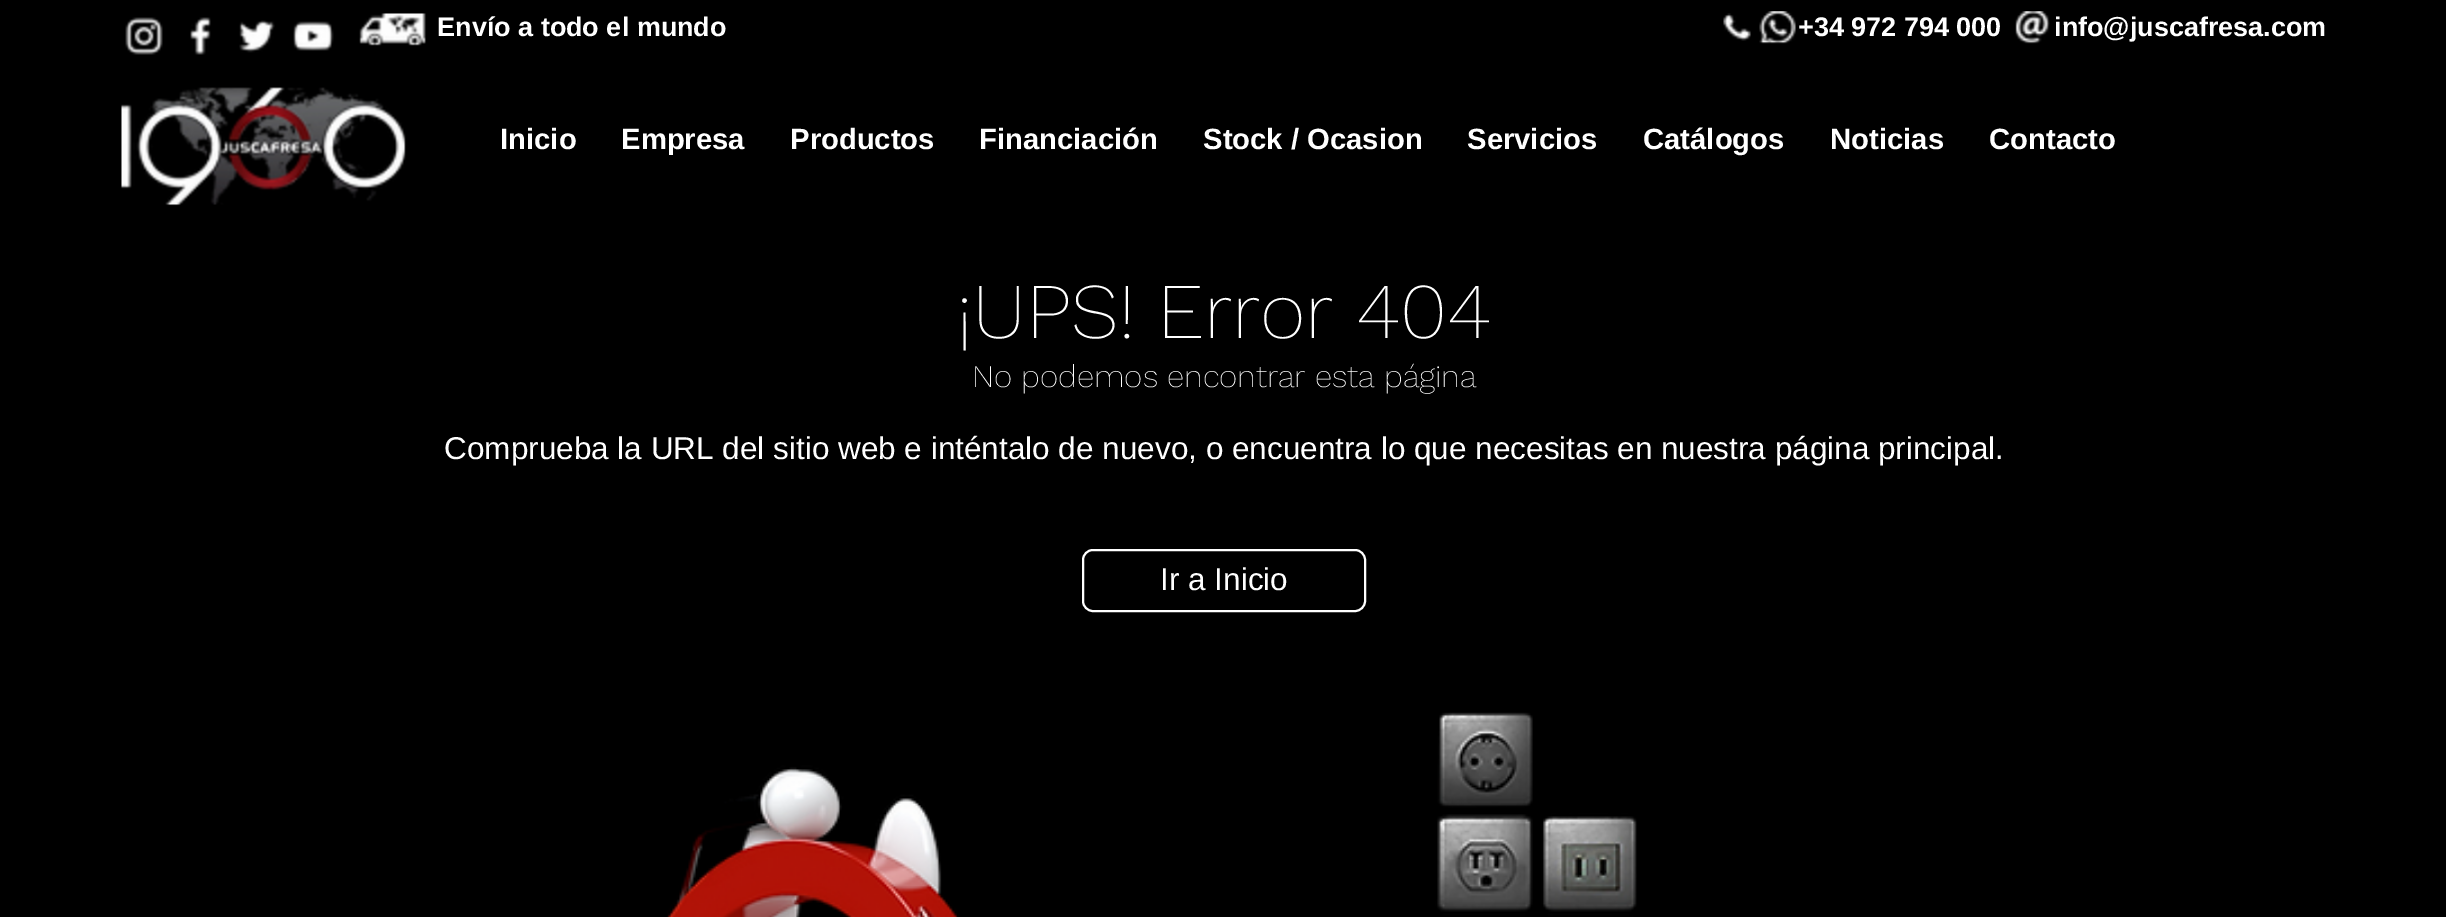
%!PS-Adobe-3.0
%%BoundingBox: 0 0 2446 917
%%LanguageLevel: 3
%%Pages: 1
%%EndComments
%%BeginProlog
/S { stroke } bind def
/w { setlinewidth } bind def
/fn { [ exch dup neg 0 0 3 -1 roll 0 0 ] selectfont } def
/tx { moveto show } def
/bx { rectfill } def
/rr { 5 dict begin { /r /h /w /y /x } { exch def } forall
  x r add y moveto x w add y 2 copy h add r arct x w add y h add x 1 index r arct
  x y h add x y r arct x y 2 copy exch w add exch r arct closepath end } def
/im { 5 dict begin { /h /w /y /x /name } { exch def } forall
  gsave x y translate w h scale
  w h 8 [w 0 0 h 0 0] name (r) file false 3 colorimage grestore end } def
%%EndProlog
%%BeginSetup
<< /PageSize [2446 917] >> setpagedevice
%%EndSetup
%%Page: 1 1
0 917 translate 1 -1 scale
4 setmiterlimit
0 setgray
0 0 2446 917 bx
(image0.raw) 359 13 67 33 im
/LiberationSans-Bold 27 fn
1 setgray
(Envío a todo el mundo) 437 36 tx
(image1.raw) 1723 13 28 28 im
(image2.raw) 1759 11 37 33 im
(image3.raw) 2015 11 35 33 im
(image4.raw) 125 17 38 38 im
(image5.raw) 190 17 21 38 im
(image6.raw) 239 20 36 33 im
(image7.raw) 293 21 41 30 im
(+34 972 794 000) 1798 36 tx
(info@juscafresa.com) 2054 36 tx
(image8.raw) 121 87 285 119 im
/LiberationSans-Bold 29.25 fn
(Inicio) 500 149 tx
(Empresa) 621 149 tx
(Productos) 790 149 tx
(Financiación) 979 149 tx
(Stock / Ocasion) 1203 149 tx
(Servicios) 1467 149 tx
(Catálogos) 1643 149 tx
(Noticias) 1830 149 tx
(Contacto) 1989 149 tx
/WorkSans-ExtraLight 78.75 fn
(¡UPS! Error 404) 957 338 tx
/WorkSans-ExtraLight 31.5 fn
(No podemos encontrar esta página) 972 387 tx
/LiberationSans-Regular 31.5 fn
(Comprueba la URL del sitio web e inténtalo de nuevo, o encuentra lo que necesitas en nuestra página principal.) 444 459 tx
2 w
1083 550 282 61 10 rr S
(Ir a Inicio) 1160 590 tx
(image9.raw) 667 712 970 205 im
showpage
%%EOF
